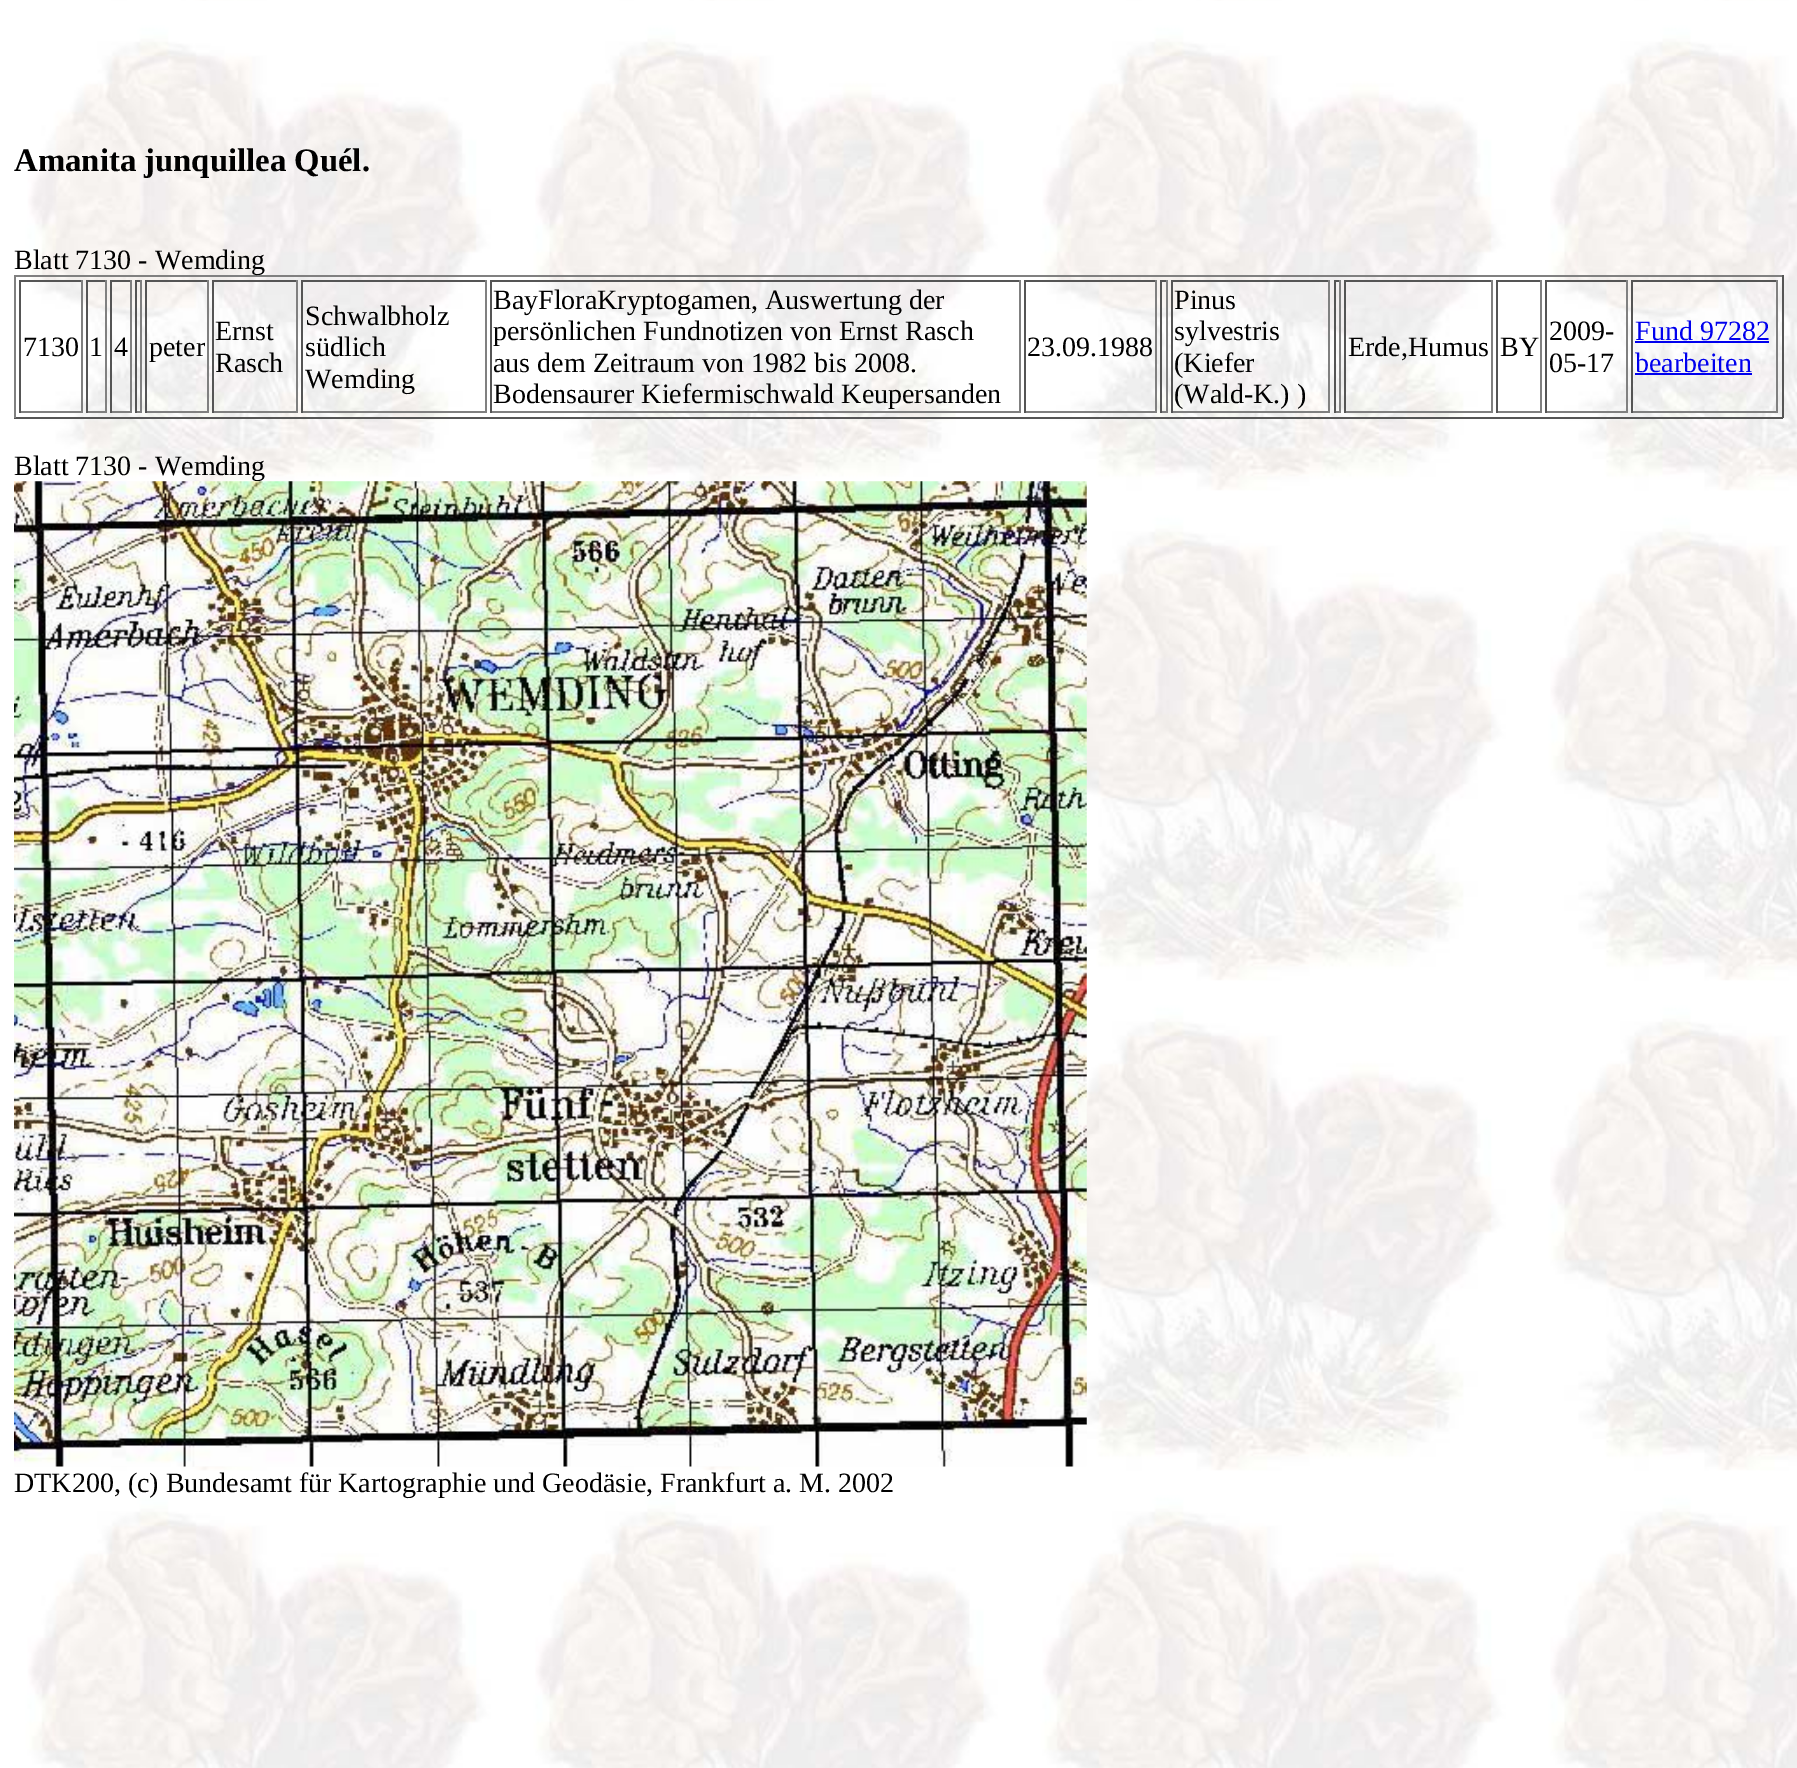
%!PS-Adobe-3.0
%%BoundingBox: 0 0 1797 1768
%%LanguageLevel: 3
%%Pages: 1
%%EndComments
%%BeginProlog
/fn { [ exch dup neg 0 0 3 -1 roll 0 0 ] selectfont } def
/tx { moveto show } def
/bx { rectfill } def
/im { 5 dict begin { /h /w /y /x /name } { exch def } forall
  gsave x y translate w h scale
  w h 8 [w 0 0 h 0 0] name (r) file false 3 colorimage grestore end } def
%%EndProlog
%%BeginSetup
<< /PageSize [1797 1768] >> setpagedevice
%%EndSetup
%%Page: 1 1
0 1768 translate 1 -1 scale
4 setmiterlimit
1 setgray
0 0 1797 1768 bx
(image0.raw) 0 0 1797 1768 im
/LiberationSerif-Bold 32.75 fn
0 setgray
(Amanita junquillea Quél.) 14 171 tx
0.502 setgray
14 275 1769 2 bx
0.333 setgray
1782 275 2 143 bx
14 417 1769 2 bx
0.502 setgray
14 275 2 143 bx
/LiberationSerif-Regular 28 fn
0 setgray
(Blatt 7130 - Wemding) 14 269 tx
0.333 setgray
19 280 63 2 bx
0.502 setgray
81 280 2 133 bx
19 411 63 2 bx
0.333 setgray
19 280 2 133 bx
0 setgray
(7130) 23 356 tx
0.333 setgray
86 280 21 2 bx
0.502 setgray
105 280 2 133 bx
86 411 21 2 bx
0.333 setgray
86 280 2 133 bx
0 setgray
(1) 89 356 tx
0.333 setgray
110 280 21 2 bx
0.502 setgray
130 280 2 133 bx
110 411 21 2 bx
0.333 setgray
110 280 2 133 bx
0 setgray
(4) 114 356 tx
0.333 setgray
135 280 7 2 bx
0.502 setgray
140 280 2 133 bx
135 411 7 2 bx
0.333 setgray
135 280 2 133 bx
145 280 63 2 bx
0.502 setgray
207 280 2 133 bx
145 411 63 2 bx
0.333 setgray
145 280 2 133 bx
0 setgray
(peter) 149 356 tx
0.333 setgray
212 280 86 2 bx
0.502 setgray
296 280 2 133 bx
212 411 86 2 bx
0.333 setgray
212 280 2 133 bx
0 setgray
(Ernst) 215 340 tx
(Rasch) 215 372 tx
0.333 setgray
301 280 186 2 bx
0.502 setgray
485 280 2 133 bx
301 411 186 2 bx
0.333 setgray
301 280 2 133 bx
0 setgray
(Schwalbholz) 305 325 tx
(südlich) 305 356 tx
(Wemding) 305 388 tx
0.333 setgray
490 280 530 2 bx
0.502 setgray
1019 280 2 133 bx
490 411 530 2 bx
0.333 setgray
490 280 2 133 bx
0 setgray
(BayFloraKryptogamen, Auswertung der) 493 309 tx
(persönlichen Fundnotizen von Ernst Rasch) 493 340 tx
(aus dem Zeitraum von 1982 bis 2008.) 493 372 tx
(Bodensaurer Kiefermischwald Keupersanden) 493 403 tx
0.333 setgray
1024 280 133 2 bx
0.502 setgray
1155 280 2 133 bx
1024 411 133 2 bx
0.333 setgray
1024 280 2 133 bx
0 setgray
(23.09.1988) 1027 356 tx
0.333 setgray
1160 280 7 2 bx
0.502 setgray
1166 280 2 133 bx
1160 411 7 2 bx
0.333 setgray
1160 280 2 133 bx
1171 280 159 2 bx
0.502 setgray
1328 280 2 133 bx
1171 411 159 2 bx
0.333 setgray
1171 280 2 133 bx
0 setgray
(Pinus) 1174 309 tx
(sylvestris) 1174 340 tx
(\(Kiefer) 1174 372 tx
(\(Wald-K.\) \)) 1174 403 tx
0.333 setgray
1334 280 7 2 bx
0.502 setgray
1339 280 2 133 bx
1334 411 7 2 bx
0.333 setgray
1334 280 2 133 bx
1344 280 149 2 bx
0.502 setgray
1491 280 2 133 bx
1344 411 149 2 bx
0.333 setgray
1344 280 2 133 bx
0 setgray
(Erde,Humus) 1348 356 tx
0.333 setgray
1496 280 46 2 bx
0.502 setgray
1540 280 2 133 bx
1496 411 46 2 bx
0.333 setgray
1496 280 2 133 bx
0 setgray
(BY) 1500 356 tx
0.333 setgray
1545 280 83 2 bx
0.502 setgray
1626 280 2 133 bx
1545 411 83 2 bx
0.333 setgray
1545 280 2 133 bx
0 setgray
(2009-) 1549 340 tx
(05-17) 1549 372 tx
0.333 setgray
1631 280 147 2 bx
0.502 setgray
1776 280 2 133 bx
1631 411 147 2 bx
0.333 setgray
1631 280 2 133 bx
0 0 0.933 setrgbcolor
(Fund 97282) 1635 340 tx
1635 341 134 2 bx
(bearbeiten) 1635 372 tx
1635 373 117 2 bx
0 setgray
(Blatt 7130 - Wemding) 14 475 tx
(image1.raw) 14 481 1073 986 im
(DTK200, \(c\) Bundesamt für Kartographie und Geodäsie, Frankfurt a. M. 2002) 14 1492 tx
showpage
%%EOF
